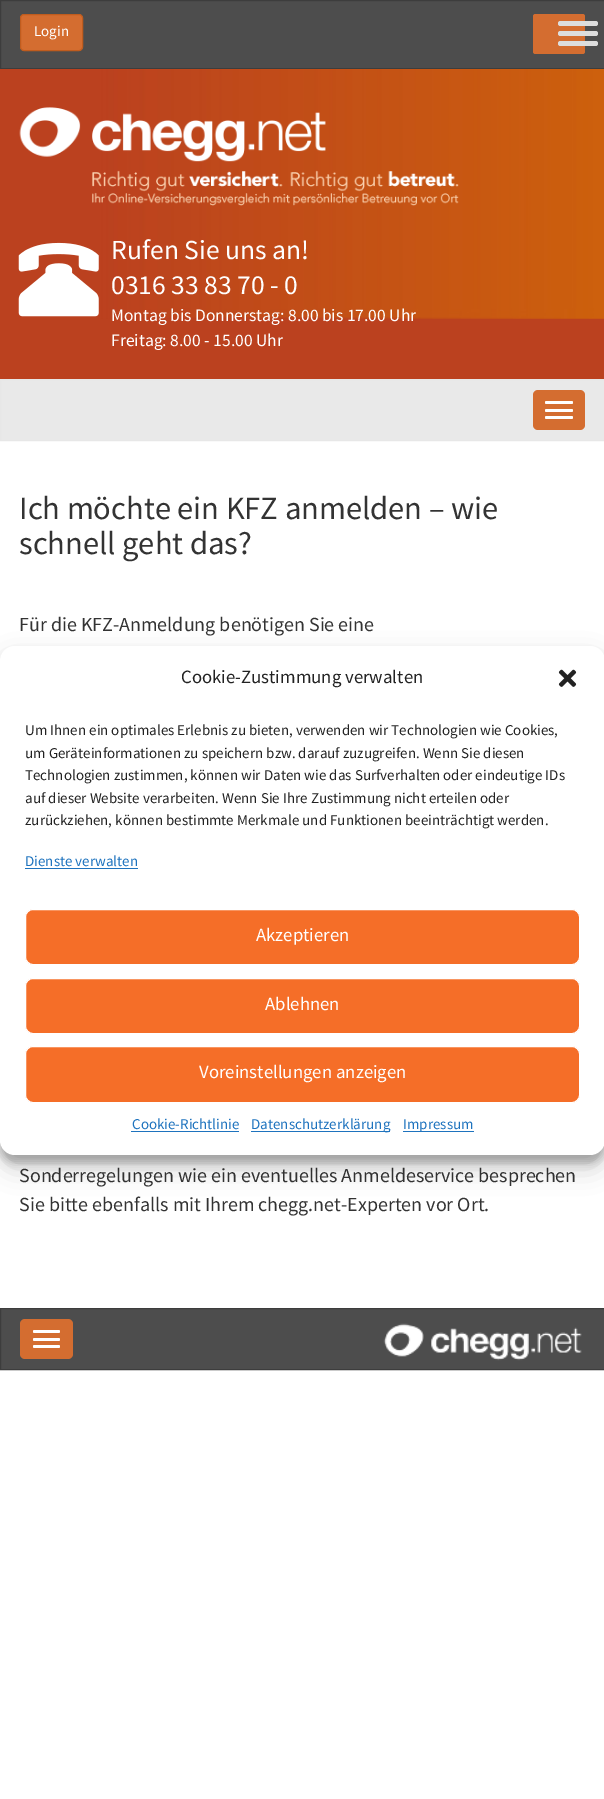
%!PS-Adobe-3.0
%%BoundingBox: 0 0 604 1799
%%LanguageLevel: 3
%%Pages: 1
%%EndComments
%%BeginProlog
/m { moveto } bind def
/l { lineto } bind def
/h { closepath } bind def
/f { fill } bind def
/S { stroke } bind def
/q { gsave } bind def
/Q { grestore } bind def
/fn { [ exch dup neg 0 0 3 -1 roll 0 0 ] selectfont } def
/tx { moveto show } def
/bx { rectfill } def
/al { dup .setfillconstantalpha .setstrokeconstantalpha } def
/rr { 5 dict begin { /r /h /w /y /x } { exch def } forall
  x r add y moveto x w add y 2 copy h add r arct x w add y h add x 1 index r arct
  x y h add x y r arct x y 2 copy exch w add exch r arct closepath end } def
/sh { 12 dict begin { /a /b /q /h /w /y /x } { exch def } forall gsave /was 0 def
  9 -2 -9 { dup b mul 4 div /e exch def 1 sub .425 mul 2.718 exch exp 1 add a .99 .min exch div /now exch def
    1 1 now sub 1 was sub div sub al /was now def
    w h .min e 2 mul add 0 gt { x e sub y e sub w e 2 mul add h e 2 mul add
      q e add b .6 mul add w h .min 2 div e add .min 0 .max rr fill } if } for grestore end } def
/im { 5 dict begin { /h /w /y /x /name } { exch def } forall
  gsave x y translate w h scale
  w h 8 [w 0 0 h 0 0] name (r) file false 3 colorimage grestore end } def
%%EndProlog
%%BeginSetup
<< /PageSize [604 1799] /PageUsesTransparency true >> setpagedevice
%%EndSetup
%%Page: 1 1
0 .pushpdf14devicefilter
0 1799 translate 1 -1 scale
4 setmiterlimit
1 setgray
0 0 604 1799 bx
0.302 setgray
0.5 0.5 m 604.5 0.5 l 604.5 68.5 l 0.5 68.5 l h q f Q
0.239 setgray
S
0.831 0.427 0.188 setrgbcolor
20.5 14.5 62 36 3.5 rr q f Q
0.753 0.361 0.118 setrgbcolor
S
/SourceSansPro-Regular 15 fn
1 setgray
(Login) 34 36 tx
0.831 0.427 0.188 setrgbcolor
533 14 52 40 2.5 rr f
0.867 setgray
558 21 40 5 2.5 rr f
558 31 40 5 2.5 rr f
558 41 40 5 2.5 rr f
0.733 0.255 0.122 setrgbcolor
0 69 604 310 bx
(image0.raw) 100 69 504 250 im
(image1.raw) 19 107 440 99 im
(image2.raw) 18 242 81 75 im
/SourceSansPro-Regular 27.5 fn
1 setgray
(Rufen Sie uns an!) 111 259 tx
(0316 33 83 70 - 0) 111 294 tx
/SourceSansPro-Regular 17.5 fn
(Montag bis Donnerstag: 8.00 bis 17.00 Uhr) 111 321 tx
(Freitag: 8.00 - 15.00 Uhr) 111 346 tx
0.914 setgray
0.5 379.5 m 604.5 379.5 l 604.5 440.5 l 0.5 440.5 l h q f Q
0.906 setgray
S
0.831 0.427 0.188 setrgbcolor
533 390 52 40 5 rr f
1 setgray
545 401 28 3 1.5 rr f
545 409 28 3 1.5 rr f
545 416 28 3 1.5 rr f
/SourceSansPro-Regular 32.5 fn
0.2 setgray
(Ich möchte ein KFZ anmelden – wie) 19 519 tx
(schnell geht das?) 19 554 tx
/SourceSansPro-Regular 20 fn
(Für die KFZ-Anmeldung benötigen Sie eine) 19 631 tx
(Sonderregelungen wie ein eventuelles Anmeldeservice besprechen) 19 1182 tx
(Sie bitte ebenfalls mit Ihrem chegg.net-Experten vor Ort.) 19 1211 tx
0 setgray
0 654 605 509 15 4 0.23 sh
0 659 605 509 15 12.5 0.19 sh
1 setgray
0 646 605 509 15 rr f
/SourceSansPro-Regular 18.75 fn
0.133 setgray
(Cookie-Zustimmung verwalten) 181 683 tx
(image3.raw) 558 669 19 18 im
/SourceSansPro-Regular 15 fn
(Um Ihnen ein optimales Erlebnis zu bieten, verwenden wir Technologien wie Cookies,) 25 735 tx
(um Geräteinformationen zu speichern bzw. darauf zuzugreifen. Wenn Sie diesen) 25 758 tx
(Technologien zustimmen, können wir Daten wie das Surfverhalten oder eindeutige IDs) 25 780 tx
(auf dieser Website verarbeiten. Wenn Sie Ihre Zustimmung nicht erteilen oder) 25 803 tx
(zurückziehen, können bestimmte Merkmale und Funktionen beeinträchtigt werden.) 25 825 tx
0.118 0.451 0.745 setrgbcolor
(Dienste verwalten) 25 866 tx
25 868 113 1 bx
0.961 0.431 0.157 setrgbcolor
25.5 909.5 554 55 7.5 rr q f Q
1 setgray
S
/SourceSansPro-Regular 18.75 fn
(Akzeptieren) 256 941 tx
0.961 0.431 0.157 setrgbcolor
25.5 978.5 554 55 7.5 rr q f Q
1 setgray
S
(Ablehnen) 265 1010 tx
0.961 0.431 0.157 setrgbcolor
25.5 1046.5 554 56 7.5 rr q f Q
1 setgray
S
(Voreinstellungen anzeigen) 199 1078 tx
/SourceSansPro-Regular 15 fn
0.118 0.451 0.745 setrgbcolor
(Cookie-Richtlinie) 132 1129 tx
131 1131 108 1 bx
251 1131 139 1 bx
(Datenschutzerklärung) 251 1129 tx
403 1131 71 1 bx
(Impressum) 403 1129 tx
0.302 setgray
0.5 1308.5 m 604.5 1308.5 l 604.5 1369.5 l 0.5 1369.5 l h q f Q
0.239 setgray
S
0.831 0.427 0.188 setrgbcolor
20 1319 53 40 5 rr f
1 setgray
33 1330 27 3 1.5 rr f
33 1338 27 3 1.5 rr f
33 1345 27 3 1.5 rr f
(image4.raw) 383 1323 199 38 im
.poppdf14devicefilter showpage
%%EOF
